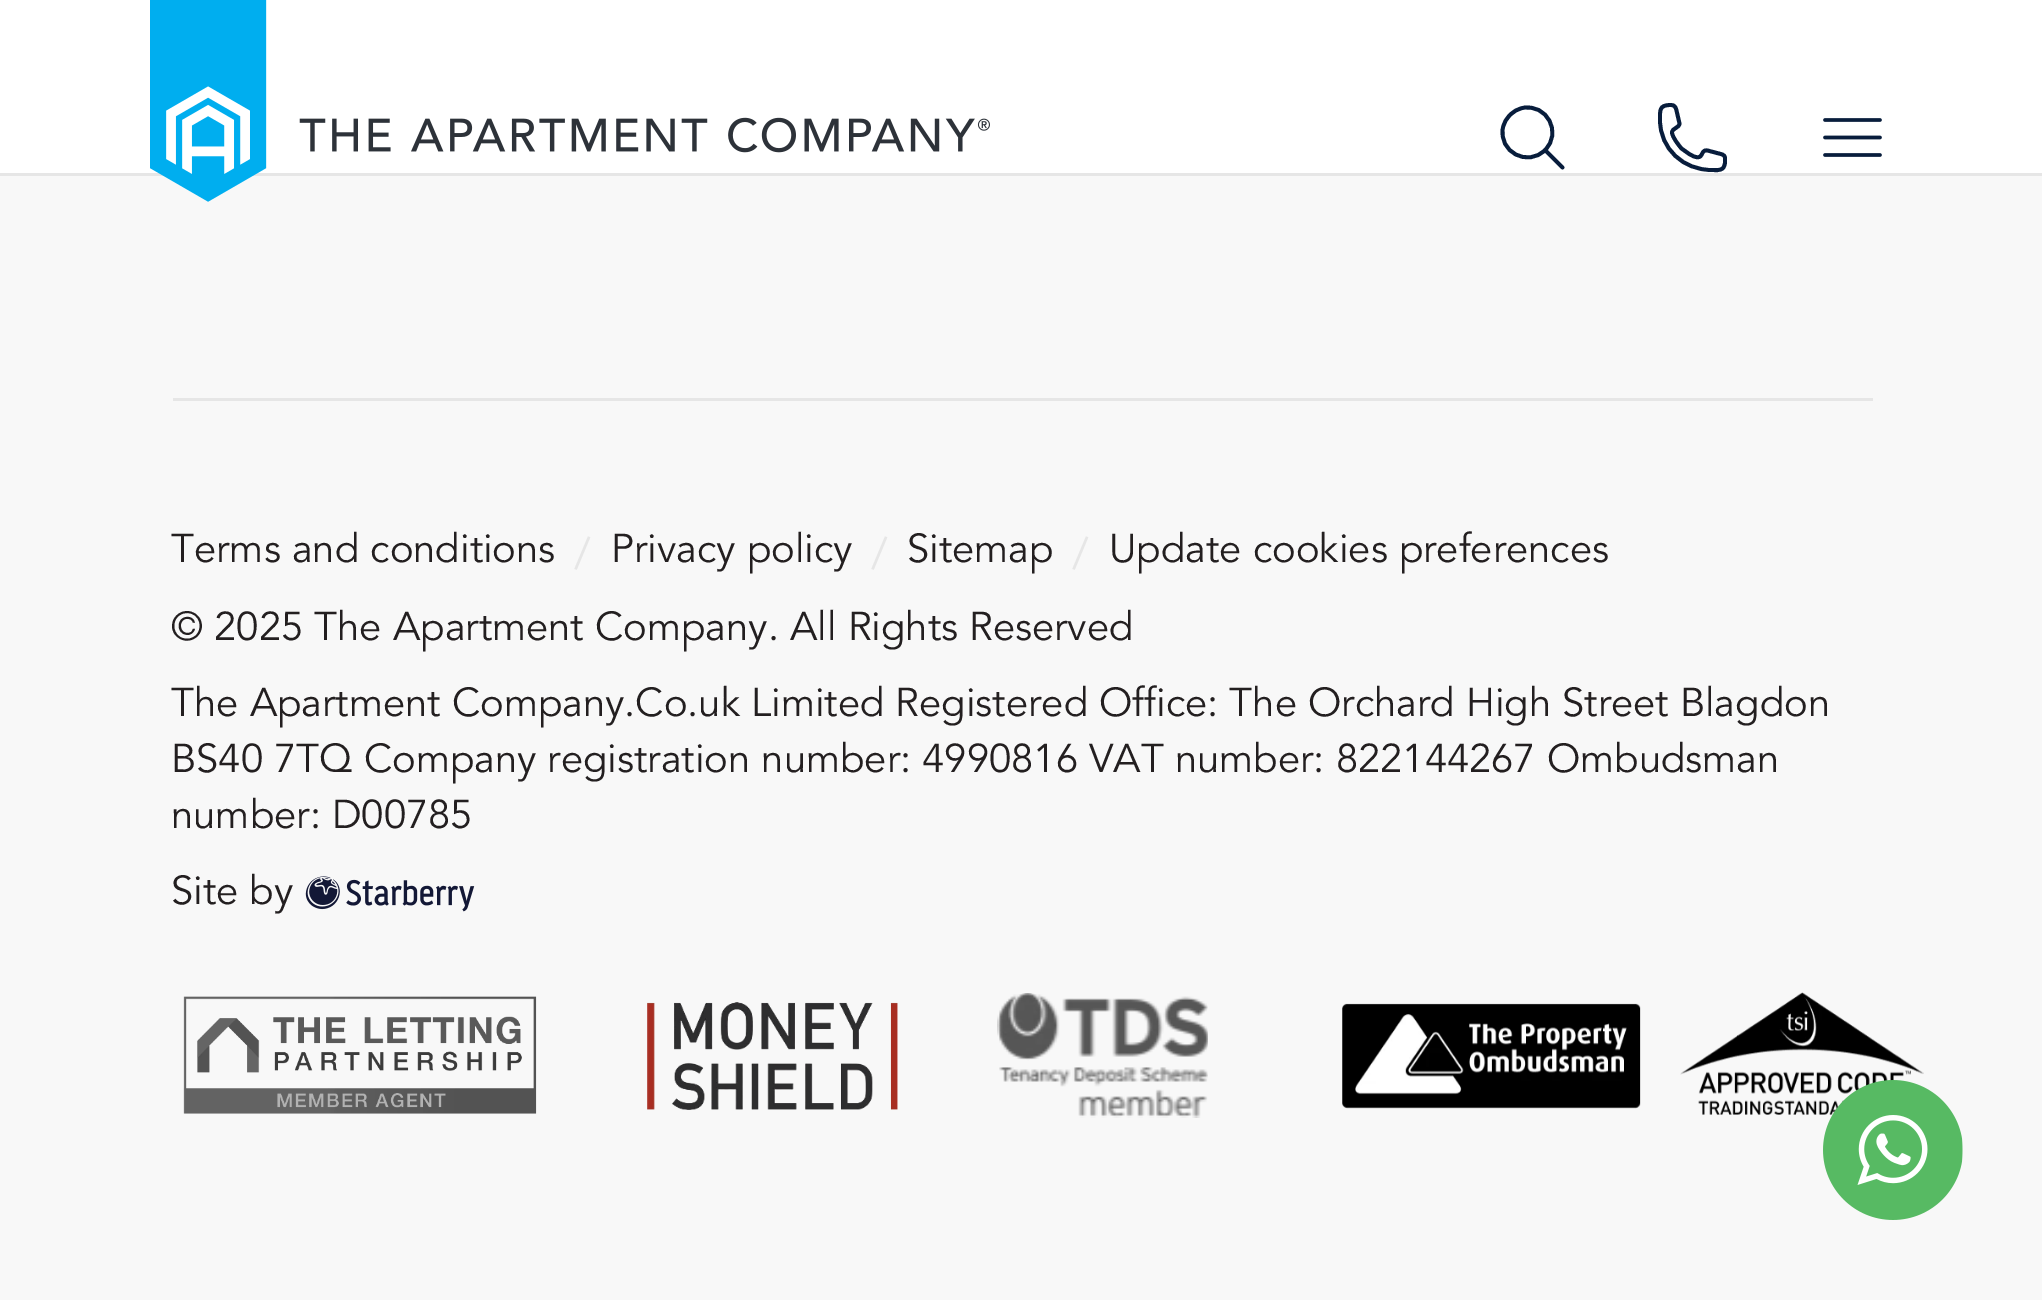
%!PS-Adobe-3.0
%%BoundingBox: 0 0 2042 1300
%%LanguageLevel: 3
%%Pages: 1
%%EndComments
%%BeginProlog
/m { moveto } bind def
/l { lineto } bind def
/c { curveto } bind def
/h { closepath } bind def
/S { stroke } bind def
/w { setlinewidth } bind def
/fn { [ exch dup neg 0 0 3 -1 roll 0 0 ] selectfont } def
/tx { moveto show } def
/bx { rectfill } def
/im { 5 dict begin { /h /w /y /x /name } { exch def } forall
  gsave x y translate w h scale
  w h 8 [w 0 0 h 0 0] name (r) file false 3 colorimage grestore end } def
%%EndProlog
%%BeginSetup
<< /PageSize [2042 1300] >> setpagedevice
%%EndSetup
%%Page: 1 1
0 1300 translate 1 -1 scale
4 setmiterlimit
0.973 setgray
0 0 2042 1300 bx
1 setgray
0 0 2042 173 bx
0.902 setgray
0 173 2042 3 bx
(image0.raw) 150 0 840 202 im
0.031 0.114 0.235 setrgbcolor
3.8 w
1 setlinecap
1 setlinejoin
1562.5 167.5 m 1545 150 l 1545 150 m 1562.5 133 1547 103 1522.5 108 c 1517.5 109 1513.5 111.5 1510 115 c 1506.5 118.5 1504 122.5 1503 127.5 c 1498 152 1528 167.5 1545 150 c h S
1660 120 m 1660 149 1683.5 170 1711.5 170 c 1715.5 170 1720 171 1723 168 c 1725.5 165 1725 161.5 1725 158 c 1725 154 1720 154 1717 153 c 1707.5 150.5 l 1699 148.5 1705.5 164.5 1688.5 153.5 c 1681.5 148.5 l 1678.5 145 1672.5 137.5 1672 132.5 c 1672 128 1679.5 128 1679.5 123.5 c 1676.5 110.5 l 1675.5 106.5 1674.5 105 1670.5 105 c 1659 105 1660 110.5 1660 120 c h S
(image1.raw) 1823 118 59 39 im
0.902 setgray
173 398 1700 3 bx
/Avenir-Regular 40 fn
0.137 0.122 0.125 setrgbcolor
(Terms and conditions) 171 562 tx
/Avenir-Regular 45 fn
0.902 setgray
(/) 574 569 tx
/Avenir-Regular 40 fn
0.137 0.122 0.125 setrgbcolor
(Privacy policy) 611 562 tx
/Avenir-Regular 45 fn
0.902 setgray
(/) 871 569 tx
/Avenir-Regular 40 fn
0.137 0.122 0.125 setrgbcolor
(Sitemap) 907 562 tx
/Avenir-Regular 45 fn
0.902 setgray
(/) 1072 569 tx
/Avenir-Regular 40 fn
0.137 0.122 0.125 setrgbcolor
(Update cookies preferences) 1109 562 tx
(© 2025 The Apartment Company. All Rights Reserved) 171 640 tx
(The Apartment Company.Co.uk Limited Registered Office: The Orchard High Street Blagdon) 171 716 tx
(BS40 7TQ Company registration number: 4990816 VAT number: 822144267 Ombudsman) 171 772 tx
(number: D00785) 171 828 tx
(Site by) 171 904 tx
(image2.raw) 305 876 170 36 im
(image3.raw) 183 996 354 118 im
(image4.raw) 647 1002 251 108 im
(image5.raw) 997 993 211 125 im
(image6.raw) 1342 992 582 123 im
(image7.raw) 1823 1080 140 140 im
showpage
%%EOF
